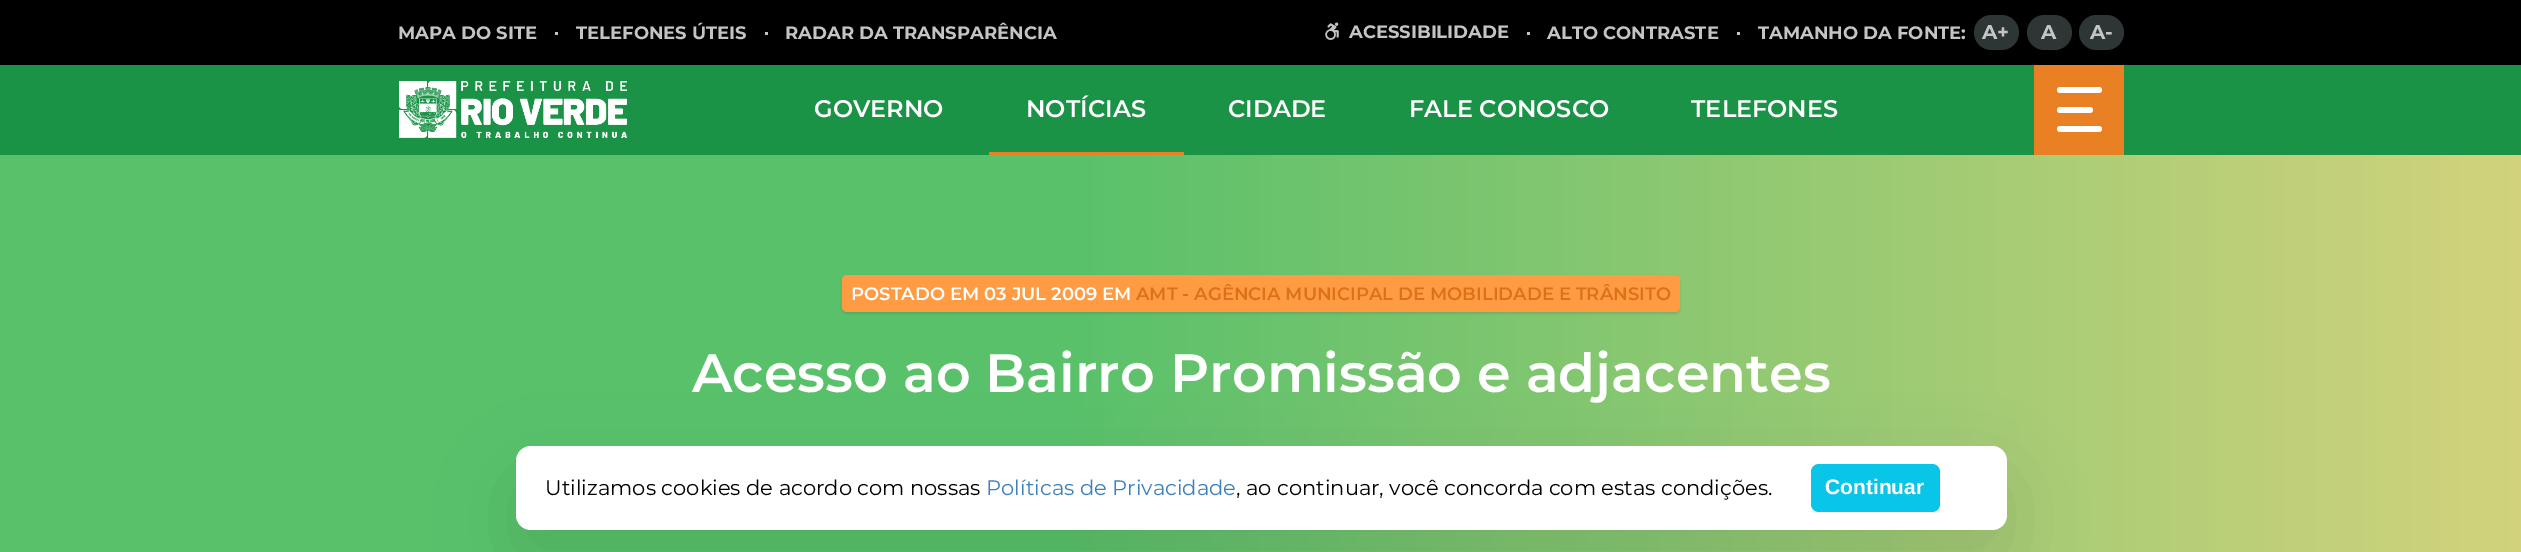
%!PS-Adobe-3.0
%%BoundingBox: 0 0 2521 552
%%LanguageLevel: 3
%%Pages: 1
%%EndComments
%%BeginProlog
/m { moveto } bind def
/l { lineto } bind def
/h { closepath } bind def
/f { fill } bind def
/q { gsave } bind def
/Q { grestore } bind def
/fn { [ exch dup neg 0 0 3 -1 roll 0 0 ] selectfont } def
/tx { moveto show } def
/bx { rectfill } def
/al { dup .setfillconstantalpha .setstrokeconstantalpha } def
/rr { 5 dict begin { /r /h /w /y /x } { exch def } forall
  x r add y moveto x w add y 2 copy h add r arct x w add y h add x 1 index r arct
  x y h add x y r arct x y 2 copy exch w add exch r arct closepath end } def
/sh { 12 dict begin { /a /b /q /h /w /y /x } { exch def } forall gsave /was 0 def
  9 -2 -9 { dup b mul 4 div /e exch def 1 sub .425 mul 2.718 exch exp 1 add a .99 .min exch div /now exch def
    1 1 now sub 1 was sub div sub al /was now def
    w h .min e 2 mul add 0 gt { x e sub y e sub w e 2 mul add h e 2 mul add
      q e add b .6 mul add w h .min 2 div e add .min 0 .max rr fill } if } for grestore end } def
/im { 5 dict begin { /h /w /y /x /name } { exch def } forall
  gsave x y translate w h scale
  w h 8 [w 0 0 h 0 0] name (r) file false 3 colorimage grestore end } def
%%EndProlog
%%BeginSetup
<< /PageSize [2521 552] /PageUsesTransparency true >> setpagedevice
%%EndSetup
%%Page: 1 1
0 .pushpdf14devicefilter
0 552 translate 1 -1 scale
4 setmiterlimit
1 setgray
0 0 2521 552 bx
0 setgray
0 0 2521 65 bx
/Montserrat-Bold 18 fn
0.769 setgray
(MAPA DO SITE) 398 39 tx
555 32 3 3 bx
(TELEFONES ÚTEIS) 576 39 tx
765 32 3 3 bx
(RADAR DA TRANSPARÊNCIA) 785 39 tx
(image0.raw) 1325 22 14 18 im
(ACESSIBILIDADE) 1349 38 tx
1527 32 3 3 bx
(ALTO CONTRASTE) 1547 39 tx
1737 32 3 3 bx
(TAMANHO DA FONTE:) 1758 39 tx
0.176 0.212 0.208 setrgbcolor
1974 15 45 35 17.5 rr f
/Montserrat-Bold 20 fn
0.769 setgray
(A+) 1982 39 tx
0.176 0.212 0.208 setrgbcolor
2027 15 45 35 17.5 rr f
0.769 setgray
(A) 2041 39 tx
0.176 0.212 0.208 setrgbcolor
2079 15 45 35 17.5 rr f
0.769 setgray
(A-) 2090 39 tx
0.106 0.576 0.278 setrgbcolor
0 65 2521 90 bx
(image1.raw) 399 81 228 57 im
/Montserrat-SemiBold 24 fn
1 setgray
(GOVERNO) 814 117 tx
(NOTÍCIAS) 1026 117 tx
0.918 0.502 0.141 setrgbcolor
989 152 195 3 bx
1 setgray
(CIDADE) 1228 117 tx
(FALE CONOSCO) 1409 117 tx
(TELEFONES) 1691 117 tx
0.918 0.502 0.141 setrgbcolor
2034 65 90 90 bx
1 setgray
2057 87 45 6 3 rr f
2057 107 36 6 3 rr f
2057 126 45 6 3 rr f
q 0 155 m 2521 155 l 2521 552 l 0 552 l h clip newpath
<< /ShadingType 2 /ColorSpace /DeviceRGB /Coords [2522 402 0 402] /Extend [true true] /Function << /FunctionType 3 /Domain [0 1] /Functions [<< /FunctionType 2 /Domain [0 1] /C0 [0.824 0.827 0.486] /C1 [0.345 0.757 0.416] /N 1 >> << /FunctionType 2 /Domain [0 1] /C0 [0.345 0.757 0.416] /C1 [0.345 0.757 0.416] /N 1 >>] /Bounds [0.58] /Encode [0 1 0 1] >> >> shfill Q
0 setgray
842 276 838 38 5 1 0.1 sh
1 0.608 0.263 setrgbcolor
842 275 838 37 5 rr f
/Montserrat-SemiBold 18 fn
1 setgray
(POSTADO EM 03 JUL 2009 EM) 851 300 tx
0.863 0.443 0.098 setrgbcolor
(AMT - AGÊNCIA MUNICIPAL DE MOBILIDADE E TRÂNSITO) 1136 300 tx
/Montserrat-SemiBold 54 fn
1 setgray
(Acesso ao Bairro Promissão e adjacentes) 692 392 tx
0 setgray
516 476 1491 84 15 37.5 0.1 sh
1 setgray
516 446 1491 84 15 rr f
/Montserrat-Regular 21 fn
0 setgray
(Utilizamos cookies de acordo com nossas) 545 495 tx
0.235 0.502 0.737 setrgbcolor
(Políticas de Privacidade) 986 495 tx
0 setgray
(, ao continuar, você concorda com estas condições.) 1236 495 tx
0.035 0.773 0.906 setrgbcolor
1811 464 129 48 8 rr f
/LiberationSans-Bold 21 fn
1 setgray
(Continuar) 1825 494 tx
.poppdf14devicefilter showpage
%%EOF
